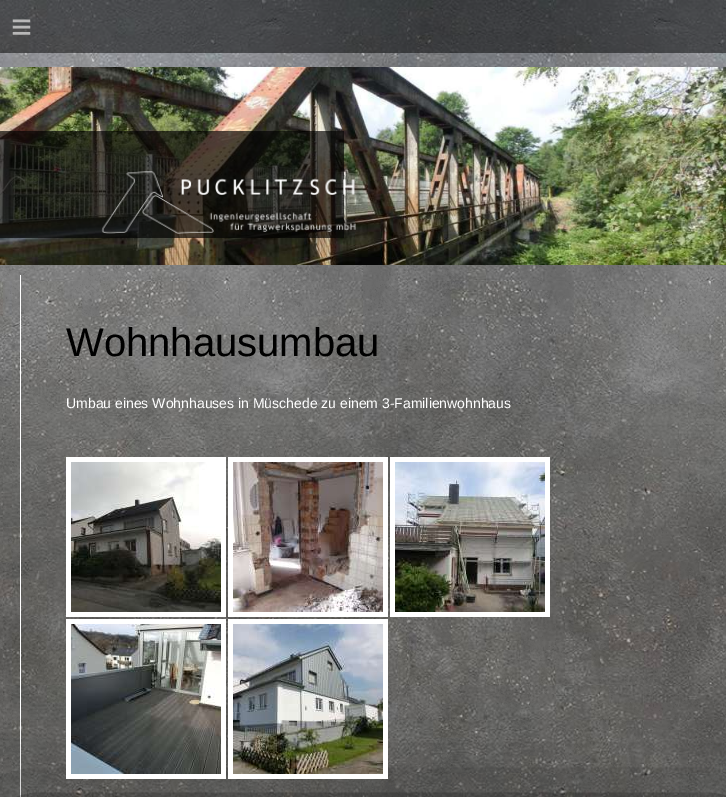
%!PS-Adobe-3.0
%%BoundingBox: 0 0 726 797
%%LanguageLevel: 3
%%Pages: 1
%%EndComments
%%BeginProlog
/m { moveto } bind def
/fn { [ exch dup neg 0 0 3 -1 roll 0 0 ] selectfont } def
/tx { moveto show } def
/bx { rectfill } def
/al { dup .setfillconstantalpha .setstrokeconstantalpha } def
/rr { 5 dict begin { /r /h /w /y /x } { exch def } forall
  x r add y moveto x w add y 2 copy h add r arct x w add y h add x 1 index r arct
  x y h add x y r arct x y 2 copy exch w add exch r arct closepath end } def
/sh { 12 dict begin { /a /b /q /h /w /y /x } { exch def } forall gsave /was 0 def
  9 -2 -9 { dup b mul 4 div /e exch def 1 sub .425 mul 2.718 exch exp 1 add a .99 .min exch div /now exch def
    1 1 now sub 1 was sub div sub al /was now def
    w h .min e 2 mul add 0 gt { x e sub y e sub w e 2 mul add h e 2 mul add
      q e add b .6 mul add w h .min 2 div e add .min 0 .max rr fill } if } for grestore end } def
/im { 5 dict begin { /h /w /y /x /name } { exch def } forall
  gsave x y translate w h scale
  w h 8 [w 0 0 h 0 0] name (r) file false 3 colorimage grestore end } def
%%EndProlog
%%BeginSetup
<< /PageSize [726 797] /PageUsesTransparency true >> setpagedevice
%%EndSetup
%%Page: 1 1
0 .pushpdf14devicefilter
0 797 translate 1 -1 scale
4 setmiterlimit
1 setgray
0 0 726 797 bx
(image0.raw) 0 0 726 797 im
0.5 al
0 setgray
0 0 726 53 bx
/LiberationSans-Regular 36 fn
1 al
0.722 setgray
11 39 m 10 0 (≡) ashow
(image1.raw) 0 265 726 532 im
(image2.raw) 0 67 726 198 im
0.66 al
0 setgray
0 131 344 107 bx
1 al
(image3.raw) 101 171 255 63 im
1 setgray
20 275 1 522 bx
/LiberationSans-Regular 40 fn
0 setgray
(Wohnhausumbau) 66 356 tx
/LiberationSans-Regular 14 fn
1 setgray
(Umbau eines Wohnhauses in Müschede zu einem 3-Familienwohnhaus) 66 408 tx
66 457 160 160 bx
(image4.raw) 71 462 150 150 im
228 457 160 160 bx
(image5.raw) 233 462 150 150 im
390 457 160 160 bx
(image6.raw) 395 462 150 150 im
0 setgray
10 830 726 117 0 50 1 sh
1 setgray
66 619 160 160 bx
(image7.raw) 71 624 150 150 im
228 619 160 160 bx
(image8.raw) 233 624 150 150 im
.poppdf14devicefilter showpage
%%EOF
